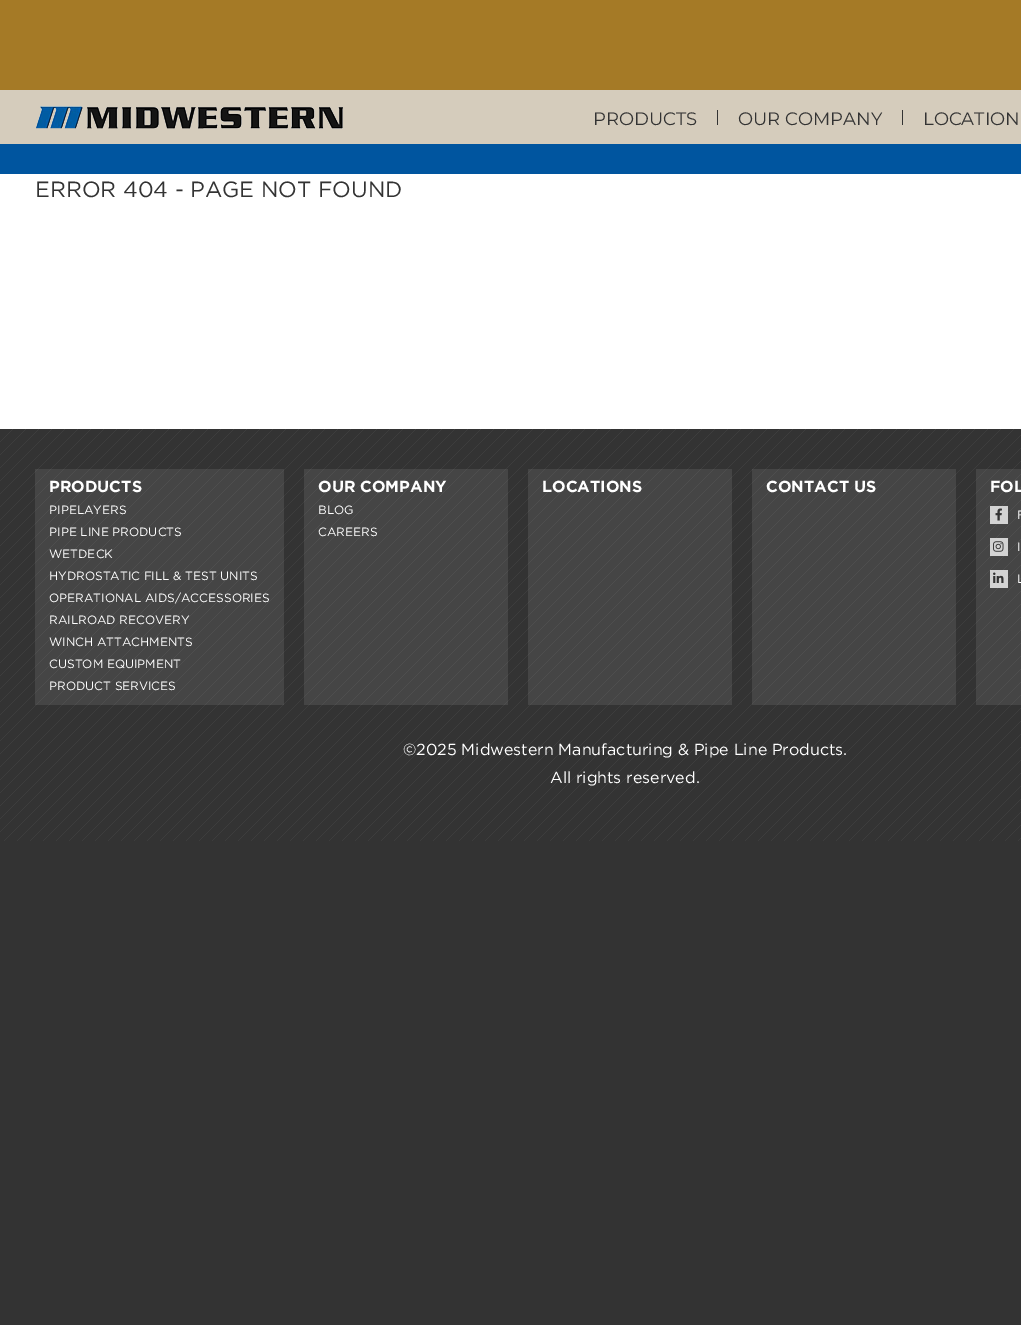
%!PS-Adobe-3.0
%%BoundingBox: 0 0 1021 1325
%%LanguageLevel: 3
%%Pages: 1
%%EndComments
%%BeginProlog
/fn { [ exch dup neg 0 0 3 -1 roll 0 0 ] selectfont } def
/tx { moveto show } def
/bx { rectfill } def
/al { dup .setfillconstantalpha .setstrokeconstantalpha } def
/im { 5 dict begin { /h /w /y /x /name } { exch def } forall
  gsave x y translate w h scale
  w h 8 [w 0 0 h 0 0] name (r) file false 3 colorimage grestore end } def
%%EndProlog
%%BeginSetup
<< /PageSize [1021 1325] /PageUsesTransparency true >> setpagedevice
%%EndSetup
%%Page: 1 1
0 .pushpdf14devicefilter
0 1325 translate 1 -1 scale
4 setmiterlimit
0.2 setgray
0 0 1021 1325 bx
1 setgray
0 174 1021 255 bx
0.647 0.478 0.149 setrgbcolor
0 0 1021 90 bx
0 0.333 0.624 setrgbcolor
0 144 1021 30 bx
0.835 0.8 0.737 setrgbcolor
0 90 1021 54 bx
(image0.raw) 36 106 307 23 im
/Montserrat-Regular 18 fn
0.2 setgray
(PRODUCTS) 593 125 tx
717 110 1 15 bx
(OUR COMPANY) 738 125 tx
902 110 1 15 bx
(LOCATION) 923 125 tx
/Gotham-Regular 22 fn
(ERROR 404 - PAGE NOT FOUND) 35 197 tx
(image1.raw) 0 429 1021 412 im
0.1 al
0.882 setgray
35 469 249 236 bx
/Gotham-Bold 16 fn
1 al
1 setgray
(PRODUCTS) 49 492 tx
/Gotham-Regular 12 fn
(PIPELAYERS) 49 514 tx
(PIPE LINE PRODUCTS) 49 536 tx
(WETDECK) 49 558 tx
(HYDROSTATIC FILL & TEST UNITS) 49 580 tx
(OPERATIONAL AIDS/ACCESSORIES) 49 602 tx
(RAILROAD RECOVERY) 49 624 tx
(WINCH ATTACHMENTS) 49 646 tx
(CUSTOM EQUIPMENT) 49 668 tx
(PRODUCT SERVICES) 49 690 tx
0.1 al
0.882 setgray
304 469 204 236 bx
/Gotham-Bold 16 fn
1 al
1 setgray
(OUR COMPANY) 318 492 tx
/Gotham-Regular 12 fn
(BLOG) 318 514 tx
(CAREERS) 318 536 tx
0.1 al
0.882 setgray
528 469 204 236 bx
/Gotham-Bold 16 fn
1 al
1 setgray
(LOCATIONS) 542 492 tx
0.1 al
0.882 setgray
752 469 204 236 bx
1 al
1 setgray
(CONTACT US) 766 492 tx
0.1 al
0.882 setgray
976 469 45 236 bx
1 al
1 setgray
(FOL) 990 492 tx
0.827 setgray
990 506 18 18 bx
(image2.raw) 995 508 7 13 im
/Gotham-Regular 12 fn
1 setgray
(F) 1017 519 tx
0.827 setgray
990 538 18 18 bx
(image3.raw) 993 541 11 11 im
1 setgray
(I) 1017 551 tx
0.827 setgray
990 570 18 18 bx
(image4.raw) 993 572 11 11 im
1 setgray
(L) 1017 583 tx
/Gotham-Regular 16 fn
(©2025 Midwestern Manufacturing & Pipe Line Products.) 403 755 tx
(All rights reserved.) 550 783 tx
.poppdf14devicefilter showpage
%%EOF
